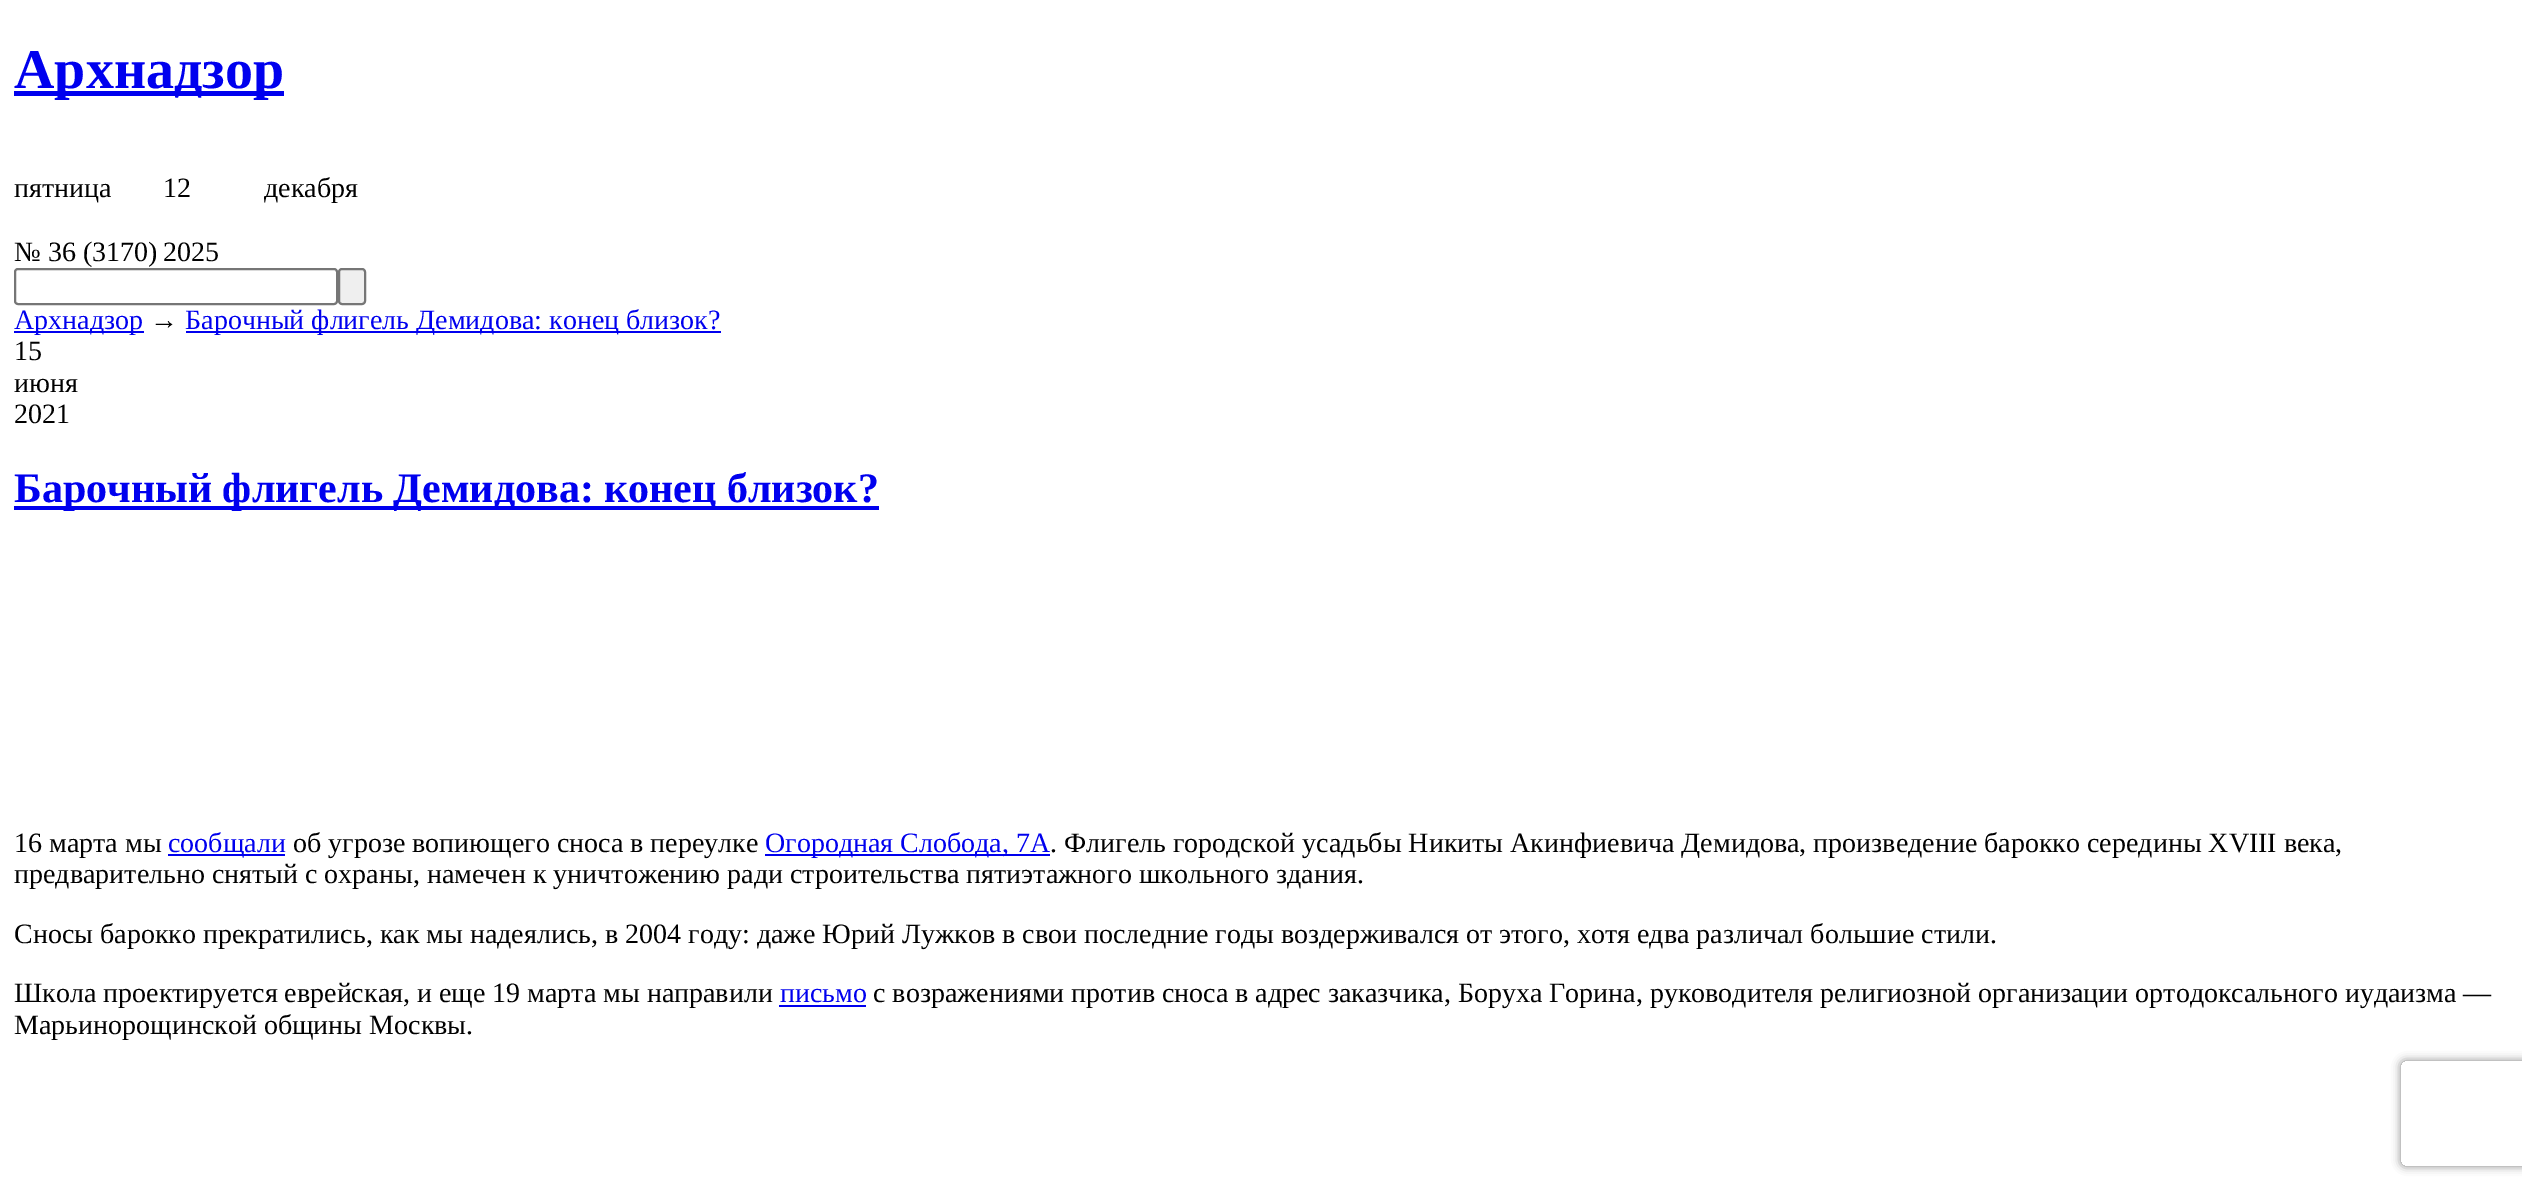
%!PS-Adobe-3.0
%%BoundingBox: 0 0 2522 1190
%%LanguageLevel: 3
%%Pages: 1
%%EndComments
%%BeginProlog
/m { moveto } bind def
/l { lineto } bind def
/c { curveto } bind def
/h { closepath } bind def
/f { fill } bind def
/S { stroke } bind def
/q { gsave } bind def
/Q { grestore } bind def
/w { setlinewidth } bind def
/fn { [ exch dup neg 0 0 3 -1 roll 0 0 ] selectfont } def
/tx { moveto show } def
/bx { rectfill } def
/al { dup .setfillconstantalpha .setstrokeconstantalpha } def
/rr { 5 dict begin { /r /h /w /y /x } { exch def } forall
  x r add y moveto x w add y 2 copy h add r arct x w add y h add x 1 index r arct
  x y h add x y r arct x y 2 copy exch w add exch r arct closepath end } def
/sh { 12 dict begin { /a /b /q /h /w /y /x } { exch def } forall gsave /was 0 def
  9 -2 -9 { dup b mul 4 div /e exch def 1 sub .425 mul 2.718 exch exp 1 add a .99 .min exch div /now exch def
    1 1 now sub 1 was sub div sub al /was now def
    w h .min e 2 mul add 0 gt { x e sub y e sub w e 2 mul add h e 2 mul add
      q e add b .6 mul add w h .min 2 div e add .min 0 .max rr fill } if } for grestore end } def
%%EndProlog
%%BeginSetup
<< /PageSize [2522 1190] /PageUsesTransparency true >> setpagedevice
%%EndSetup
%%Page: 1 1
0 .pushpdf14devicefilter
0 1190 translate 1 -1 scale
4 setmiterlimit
1 setgray
0 0 2522 1190 bx
0 0 0.933 setrgbcolor
14 91 270 5 bx
/LiberationSerif-Bold 56 fn
(Архнадзор) 14 88 tx
/LiberationSerif-Regular 28 fn
0 setgray
(пятница) 14 197 tx
(12) 163 197 tx
(декабря) 264 197 tx
(№ 36 \(3170\)) 14 261 tx
(2025) 163 261 tx
0.463 setgray
2 w
15 269 322 35 3 rr S
0.937 setgray
339 269 26 35 3 rr q f Q
0.463 setgray
S
0 0 0.933 setrgbcolor
14 331 130 2 bx
(Архнадзор) 14 329 tx
0 setgray
(→) 150 329 tx
0 0 0.933 setrgbcolor
186 331 535 2 bx
(Барочный флигель Демидова: конец близок?) 185 329 tx
0 setgray
(15) 14 360 tx
(июня) 14 392 tx
(2021) 14 423 tx
0 0 0.933 setrgbcolor
14 506 865 4 bx
/LiberationSerif-Bold 42 fn
(Барочный флигель Демидова: конец близок?) 14 502 tx
/LiberationSerif-Regular 28 fn
0 setgray
(16 марта мы) 14 852 tx
0 0 0.933 setrgbcolor
168 854 117 2 bx
(сообщали) 168 852 tx
0 setgray
(об угрозе вопиющего сноса в переулке) 293 852 tx
0 0 0.933 setrgbcolor
765 854 285 2 bx
(Огородная Слобода, 7А) 765 852 tx
0 setgray
(. Флигель городской усадьбы Никиты Акинфиевича Демидова, произведение барокко середины XVIII века,) 1050 852 tx
(предварительно снятый с охраны, намечен к уничтожению ради строительства пятиэтажного школьного здания.) 14 883 tx
(Сносы барокко прекратились, как мы надеялись, в 2004 году: даже Юрий Лужков в свои последние годы воздерживался от этого, хотя едва различал большие стили.) 14 943 tx
(Школа проектируется еврейская, и еще 19 марта мы направили) 14 1002 tx
0 0 0.933 setrgbcolor
(письмо) 780 1002 tx
779 1005 87 2 bx
0 setgray
(с возражениями против сноса в адрес заказчика, Боруха Горина, руководителя религиозной организации ортодоксального иудаизма —) 873 1002 tx
(Марьинорощинской общины Москвы.) 14 1034 tx
q
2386 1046 m 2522 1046 l 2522 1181 l 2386 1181 l h 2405 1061 m 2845 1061 l 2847 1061 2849 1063 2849 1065 c 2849 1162 l 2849 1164 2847 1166 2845 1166 c 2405 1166 l 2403 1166 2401 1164 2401 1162 c 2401 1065 l 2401 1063 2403 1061 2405 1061 c h eoclip newpath
0.502 setgray
2401 1061 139 105 4 4.5 1 sh
Q
.poppdf14devicefilter showpage
%%EOF
